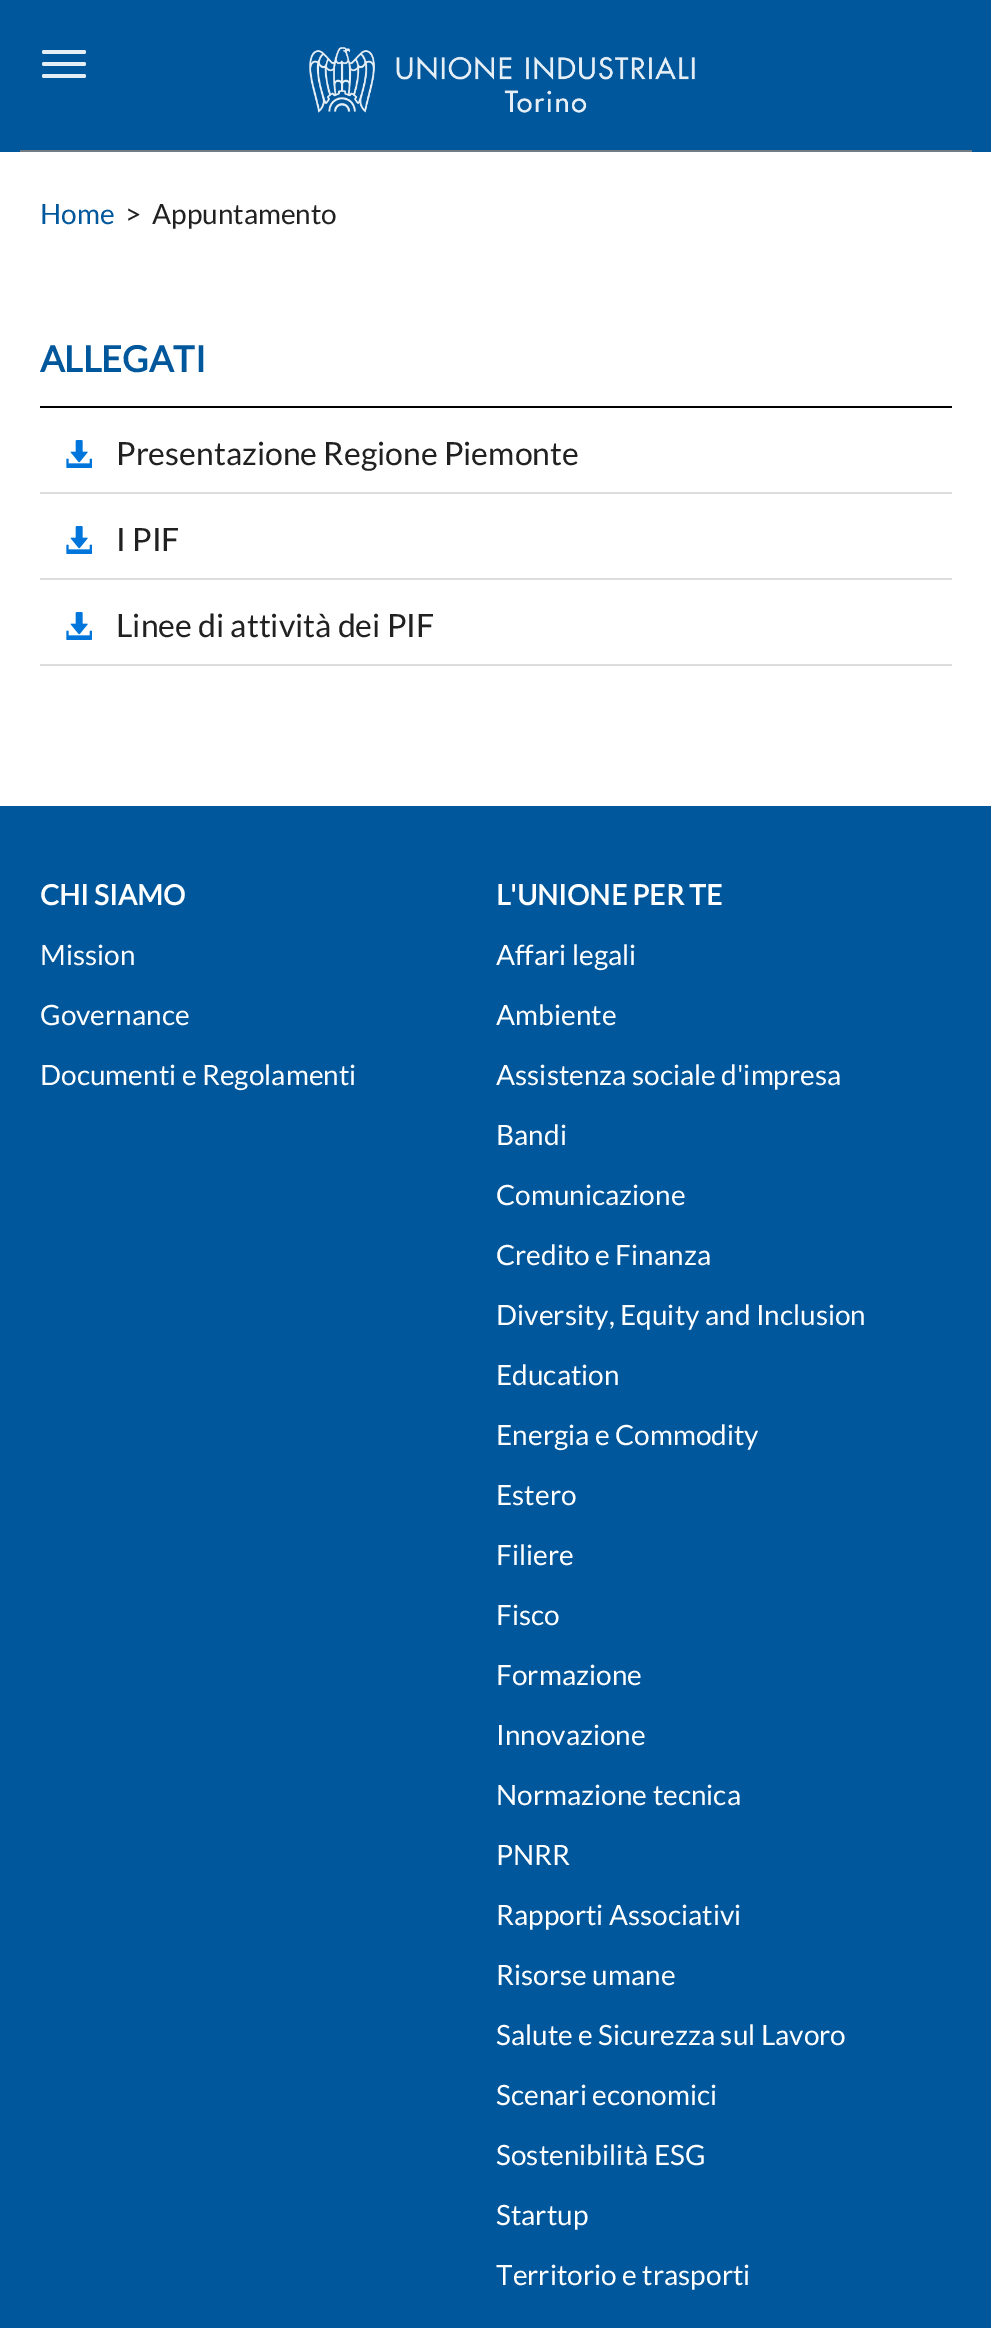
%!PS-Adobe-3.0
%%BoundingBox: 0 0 991 2328
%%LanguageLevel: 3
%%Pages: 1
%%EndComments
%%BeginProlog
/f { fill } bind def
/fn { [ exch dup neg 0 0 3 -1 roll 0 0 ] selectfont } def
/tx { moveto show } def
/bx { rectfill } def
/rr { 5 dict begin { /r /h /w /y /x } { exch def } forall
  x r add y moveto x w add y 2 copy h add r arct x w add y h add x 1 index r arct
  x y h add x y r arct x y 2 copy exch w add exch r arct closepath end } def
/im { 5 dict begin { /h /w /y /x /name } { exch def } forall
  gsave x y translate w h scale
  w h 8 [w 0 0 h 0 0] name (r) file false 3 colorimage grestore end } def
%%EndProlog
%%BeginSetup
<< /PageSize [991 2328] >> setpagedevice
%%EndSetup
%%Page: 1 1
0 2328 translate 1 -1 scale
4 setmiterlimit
1 setgray
0 0 991 2328 bx
0.004 0.341 0.608 setrgbcolor
0 0 991 152 bx
0.451 0.486 0.514 setrgbcolor
20 150 952 2 bx
0.902 0.933 0.961 setrgbcolor
42 50 44 4 2 rr f
42 62 44 4 2 rr f
42 74 44 4 2 rr f
(image0.raw) 309 47 386 66 im
/Lato-Regular 28 fn
0.004 0.341 0.608 setrgbcolor
(Home) 40 224 tx
0.129 setgray
(>  Appuntamento) 125 224 tx
0 setgray
40 406 912 2 bx
/Lato-Bold 36 fn
0.004 0.341 0.608 setrgbcolor
(ALLEGATI) 40 372 tx
0.867 setgray
40 492 912 2 bx
(image1.raw) 66 440 26 28 im
/Lato-Regular 32 fn
0.129 setgray
(Presentazione Regione Piemonte) 116 465 tx
0.867 setgray
40 578 912 2 bx
(image1.raw) 66 526 26 28 im
0.129 setgray
(I PIF) 116 551 tx
0.867 setgray
40 664 912 2 bx
(image1.raw) 66 612 26 28 im
0.129 setgray
(Linee di attività dei PIF) 116 637 tx
0.004 0.341 0.608 setrgbcolor
0 806 991 1522 bx
/Lato-Bold 28 fn
1 setgray
(CHI SIAMO) 40 905 tx
/Lato-Regular 28 fn
(Mission) 40 965 tx
(Governance) 40 1025 tx
(Documenti e Regolamenti) 40 1085 tx
/Lato-Bold 28 fn
(L'UNIONE PER TE) 496 905 tx
/Lato-Regular 28 fn
(Affari legali) 496 965 tx
(Ambiente) 496 1025 tx
(Assistenza sociale d'impresa) 496 1085 tx
(Bandi) 496 1145 tx
(Comunicazione) 496 1205 tx
(Credito e Finanza) 496 1265 tx
(Diversity, Equity and Inclusion) 496 1325 tx
(Education) 496 1385 tx
(Energia e Commodity) 496 1445 tx
(Estero) 496 1505 tx
(Filiere) 496 1565 tx
(Fisco) 496 1625 tx
(Formazione) 496 1685 tx
(Innovazione) 496 1745 tx
(Normazione tecnica) 496 1805 tx
(PNRR) 496 1865 tx
(Rapporti Associativi) 496 1925 tx
(Risorse umane) 496 1985 tx
(Salute e Sicurezza sul Lavoro) 496 2045 tx
(Scenari economici) 496 2105 tx
(Sostenibilità ESG) 496 2165 tx
(Startup) 496 2225 tx
(Territorio e trasporti) 496 2285 tx
showpage
%%EOF
